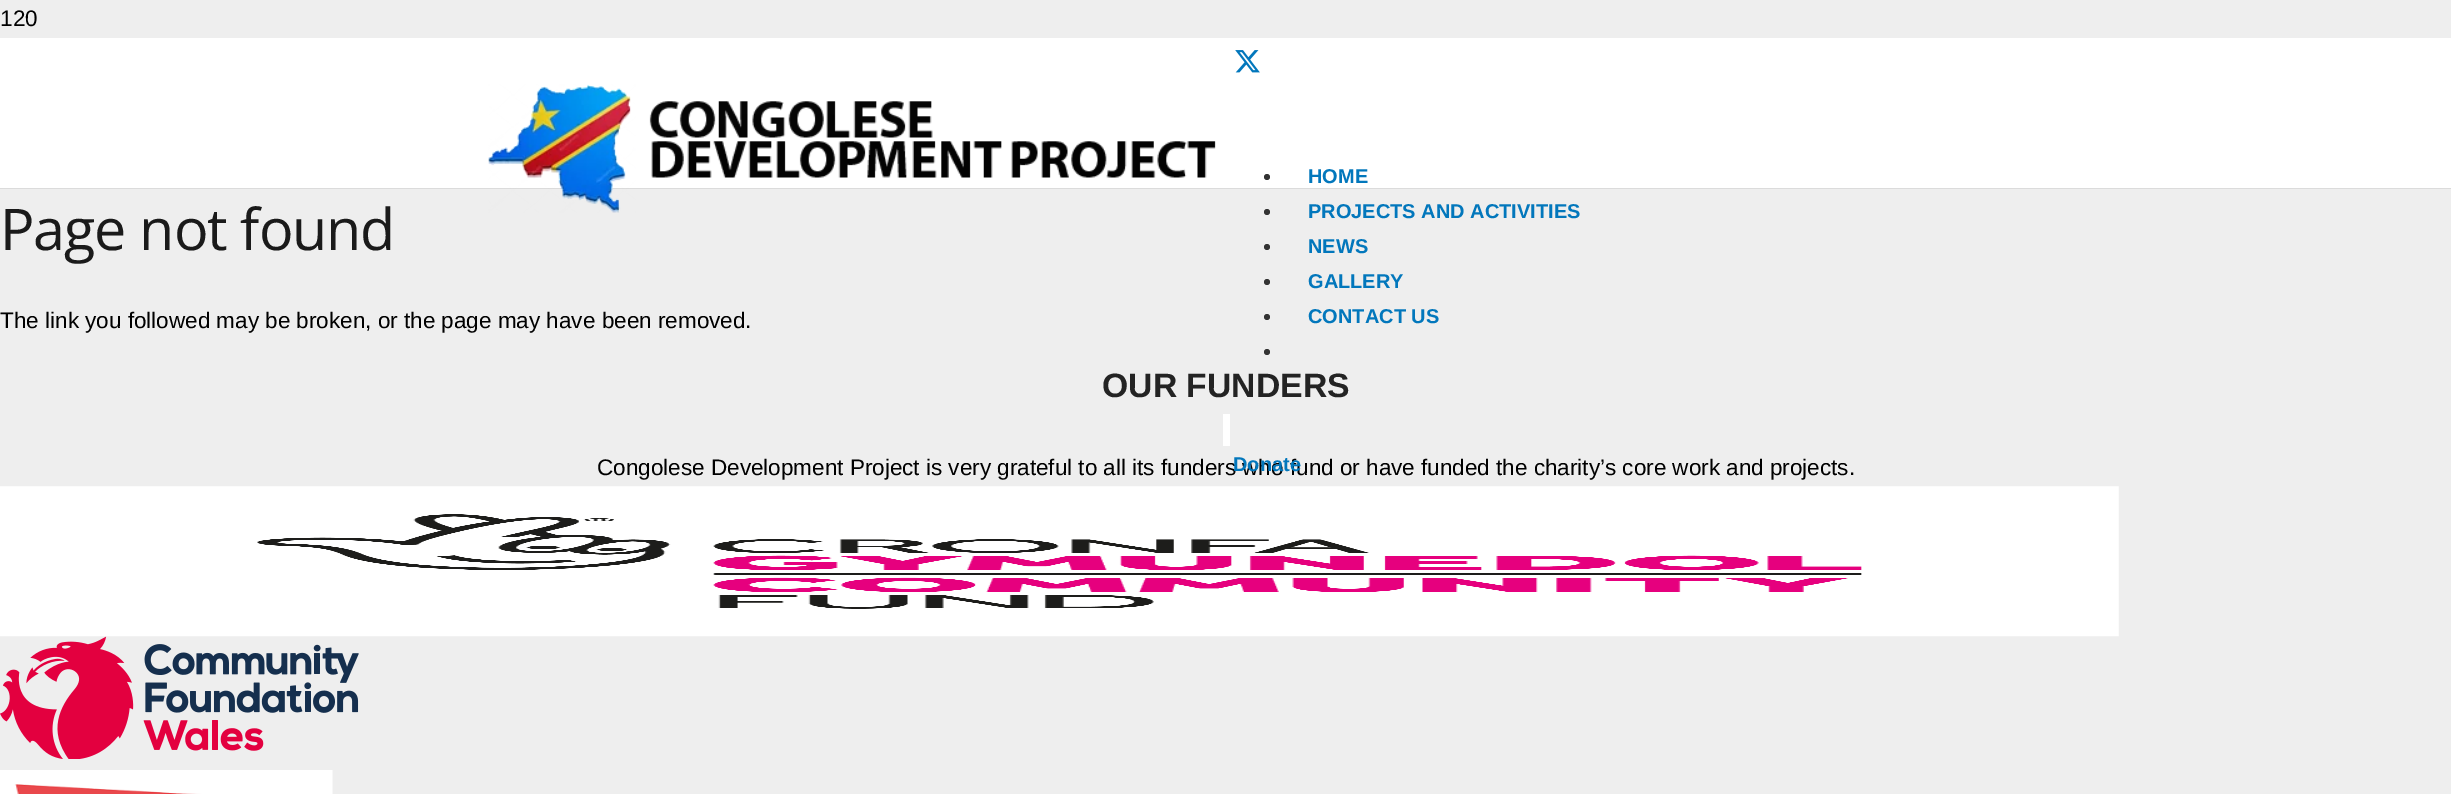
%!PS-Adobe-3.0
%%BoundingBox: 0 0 2451 794
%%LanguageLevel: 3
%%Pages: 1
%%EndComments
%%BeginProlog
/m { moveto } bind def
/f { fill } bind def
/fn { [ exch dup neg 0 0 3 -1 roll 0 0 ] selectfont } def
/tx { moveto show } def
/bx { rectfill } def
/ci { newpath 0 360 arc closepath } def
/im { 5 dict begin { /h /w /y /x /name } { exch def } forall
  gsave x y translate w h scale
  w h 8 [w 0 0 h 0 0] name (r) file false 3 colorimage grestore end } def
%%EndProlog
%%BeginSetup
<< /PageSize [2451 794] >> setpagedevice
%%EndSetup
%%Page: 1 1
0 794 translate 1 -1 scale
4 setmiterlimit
0.933 setgray
0 0 2451 794 bx
/LiberationSans-Regular 22.5 fn
0 setgray
(120) 0 26 tx
0.859 setgray
0 188 2451 1 bx
1 setgray
0 38 2451 150 bx
(image0.raw) 488 84 728 129 im
(image1.raw) 1235 50 25 23 im
0.2 setgray
1267 177 3 ci f
/LiberationSans-Bold 20 fn
0.008 0.467 0.737 setrgbcolor
(HOME) 1308 183 tx
0.2 setgray
1267 212 3 ci f
0.008 0.467 0.737 setrgbcolor
(PROJECTS AND ACTIVITIES) 1308 218 tx
0.2 setgray
1267 247 3 ci f
0.008 0.467 0.737 setrgbcolor
(NEWS) 1308 253 tx
0.2 setgray
1267 282 3 ci f
0.008 0.467 0.737 setrgbcolor
(GALLERY) 1308 288 tx
0.2 setgray
1267 317 3 ci f
0.008 0.467 0.737 setrgbcolor
(CONTACT US) 1308 323 tx
0.2 setgray
1267 352 3 ci f
/LiberationSans-Regular 22.5 fn
0 setgray
(Congolese Development Project is very grateful to all its funders who fund or have funded the charity’s core work and projects.) 597 475 tx
/LiberationSans-Bold 20 fn
0.008 0.467 0.737 setrgbcolor
(Donate) 1233 471 tx
/OpenSans-Regular 57.5 fn
0.102 setgray
0 250 m -1.1 0 (Page not found) ashow
/LiberationSans-Regular 22.5 fn
0 setgray
(The link you followed may be broken, or the page may have been removed.) 0 328 tx
/LiberationSans-Bold 33.75 fn
0.137 setgray
(OUR FUNDERS) 1102 397 tx
1 setgray
1227 414 3 31 bx
1223 443 7 3 bx
1223 414 4 31 bx
(image2.raw) 0 486 2119 151 im
(image3.raw) 0 636 359 123 im
(image4.raw) 0 770 333 24 im
showpage
%%EOF
